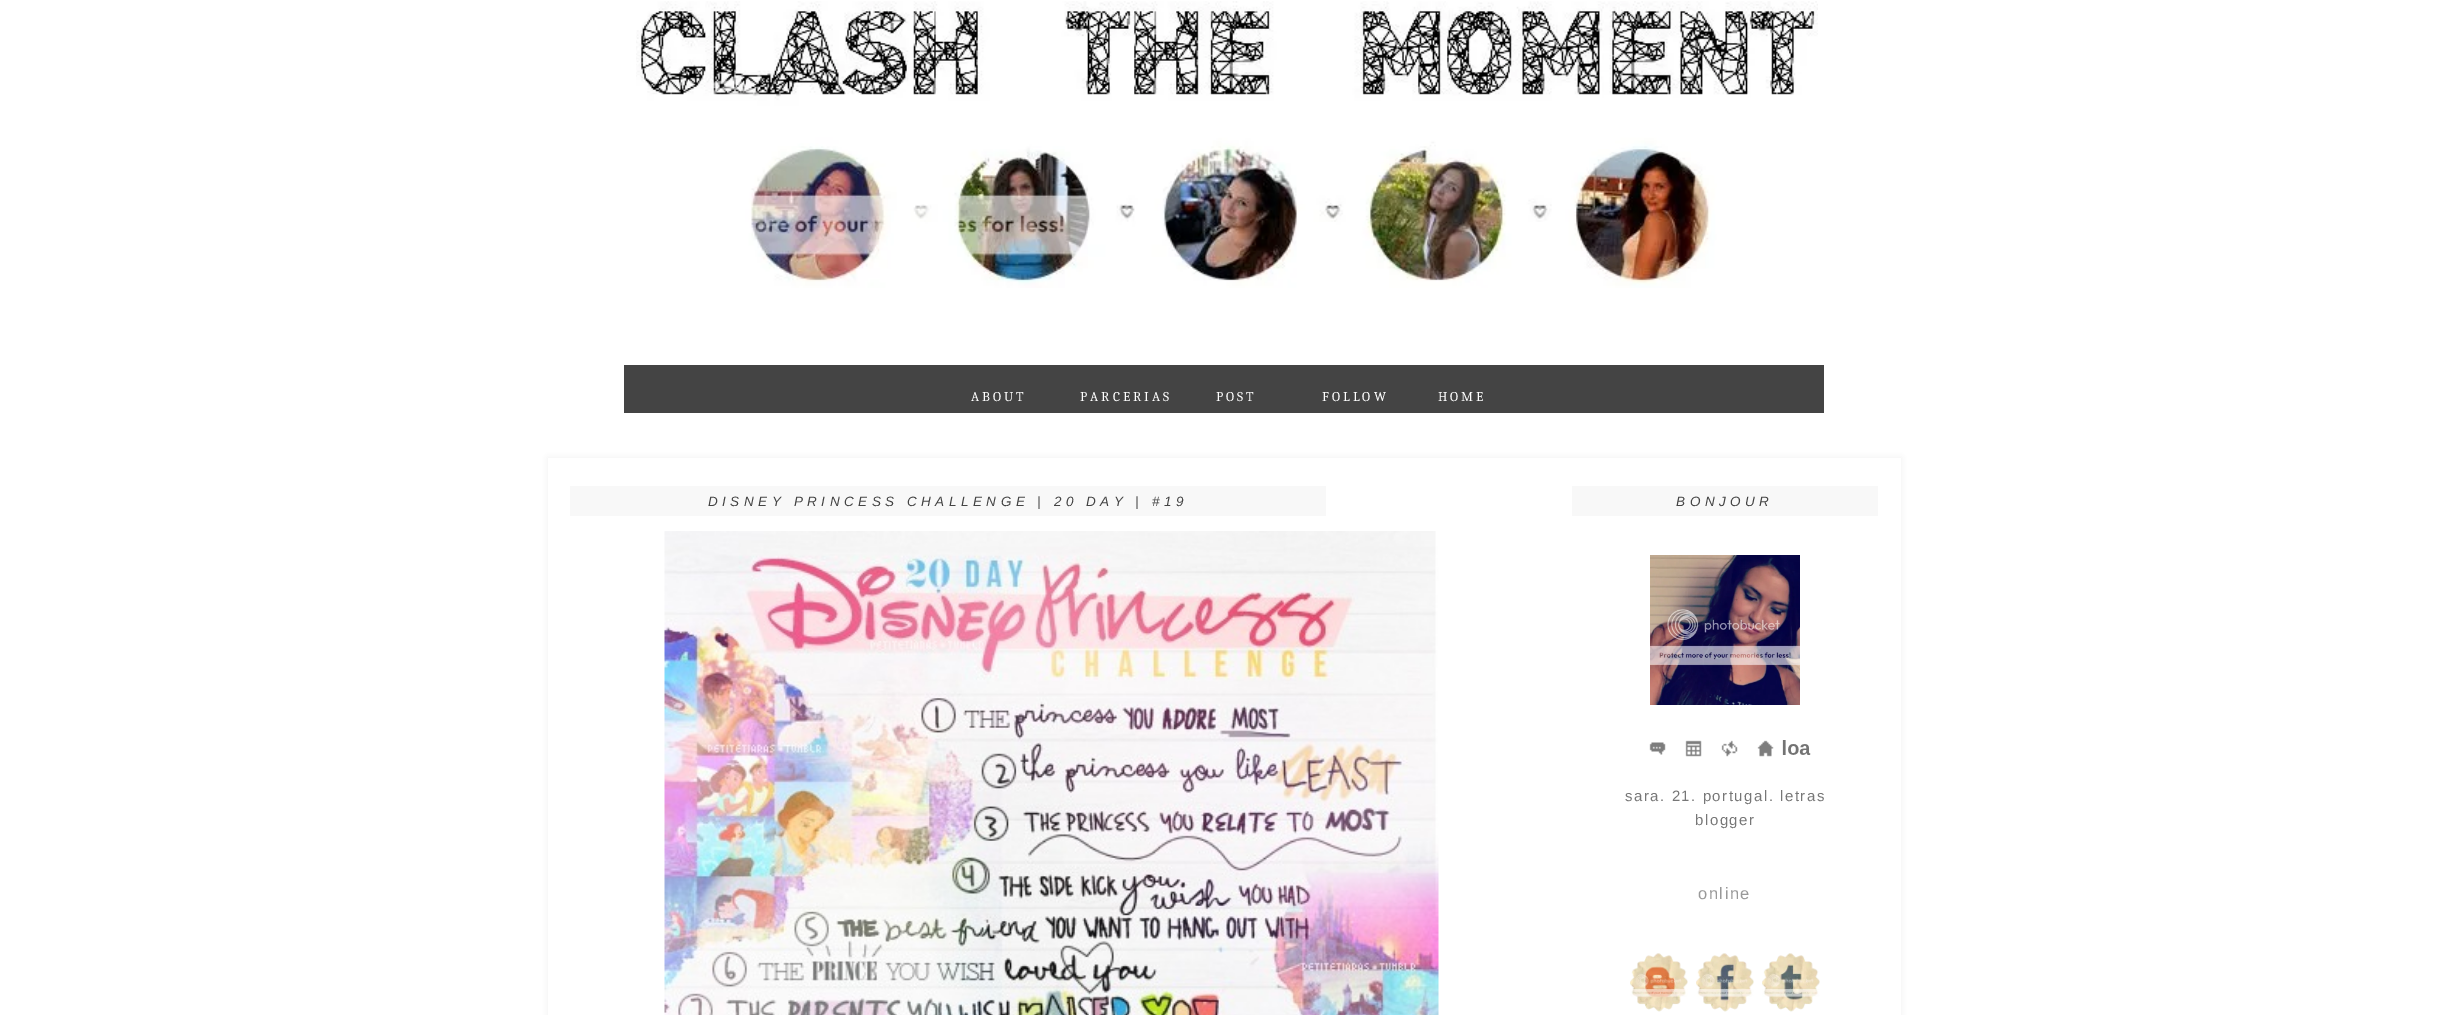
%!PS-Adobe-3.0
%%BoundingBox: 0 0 2447 1015
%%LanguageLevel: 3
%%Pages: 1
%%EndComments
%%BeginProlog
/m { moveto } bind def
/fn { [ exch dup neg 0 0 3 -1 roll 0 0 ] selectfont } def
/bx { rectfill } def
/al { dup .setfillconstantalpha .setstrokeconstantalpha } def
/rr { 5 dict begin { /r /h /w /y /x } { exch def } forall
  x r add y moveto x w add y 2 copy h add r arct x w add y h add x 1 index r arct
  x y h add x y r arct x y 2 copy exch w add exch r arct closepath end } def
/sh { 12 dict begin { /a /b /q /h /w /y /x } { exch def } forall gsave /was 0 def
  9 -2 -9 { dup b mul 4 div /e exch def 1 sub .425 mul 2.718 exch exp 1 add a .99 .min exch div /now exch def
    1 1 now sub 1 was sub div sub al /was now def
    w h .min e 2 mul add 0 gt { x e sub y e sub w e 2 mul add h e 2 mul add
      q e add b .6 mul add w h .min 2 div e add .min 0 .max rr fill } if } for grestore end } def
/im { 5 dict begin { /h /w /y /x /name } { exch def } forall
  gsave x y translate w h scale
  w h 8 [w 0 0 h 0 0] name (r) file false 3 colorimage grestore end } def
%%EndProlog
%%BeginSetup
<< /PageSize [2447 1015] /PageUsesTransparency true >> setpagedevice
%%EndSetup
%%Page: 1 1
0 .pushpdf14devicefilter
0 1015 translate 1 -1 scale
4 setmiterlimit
1 setgray
0 0 2447 1015 bx
(image0.raw) 636 1 1182 287 im
0.267 setgray
624 365 1200 48 bx
/Caladea-Regular 13.5 fn
1 setgray
971 401 m 3 0 (ABOUT) ashow
1080 401 m 3 0 (PARCERIAS) ashow
1216 401 m 3 0 (POST) ashow
1322 401 m 3 0 (FOLLOW) ashow
1438 401 m 3 0 (HOME) ashow
0.933 setgray
548 458 1353 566 0 3 1 sh
1 setgray
548 458 1353 557 bx
0.973 setgray
570 486 756 30 bx
/LiberationSans-Italic 13.5 fn
0.267 setgray
708 506 m 4.5 0 (DISNEY PRINCESS CHALLENGE | 20 DAY | #19) ashow
(image1.raw) 664 531 775 484 im
0.973 setgray
1572 486 306 30 bx
0.267 setgray
1676 506 m 4.5 0 (BONJOUR) ashow
(image2.raw) 1650 555 150 150 im
(image3.raw) 1649 742 17 13 im
(image4.raw) 1685 740 17 17 im
(image5.raw) 1721 740 17 17 im
(image6.raw) 1757 740 17 17 im
(image7.raw) 1782 740 29 15 im
/LiberationSans-Regular 15 fn
0.467 setgray
1625 801 m 1.5 0 (sara. 21. portugal. letras) ashow
1695 825 m 1.5 0 (blogger) ashow
/LiberationSans-Regular 16.5 fn
0.6 setgray
1698 899 m 1.5 0 (online) ashow
(image8.raw) 1630 953 58 59 im
(image9.raw) 1696 953 58 59 im
(image10.raw) 1762 953 58 59 im
.poppdf14devicefilter showpage
%%EOF
